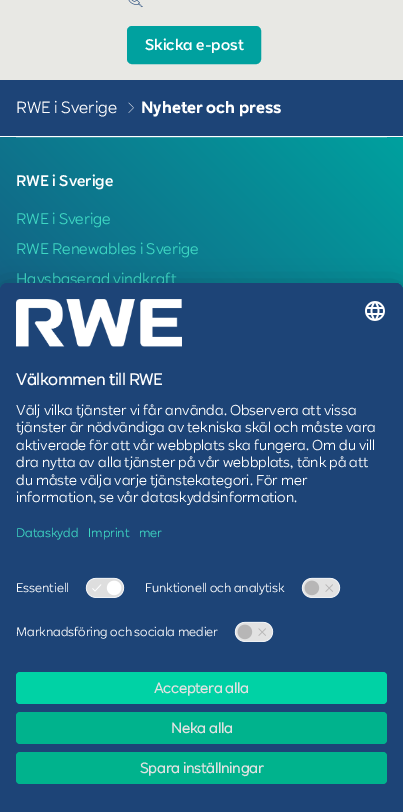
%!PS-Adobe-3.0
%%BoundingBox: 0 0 403 812
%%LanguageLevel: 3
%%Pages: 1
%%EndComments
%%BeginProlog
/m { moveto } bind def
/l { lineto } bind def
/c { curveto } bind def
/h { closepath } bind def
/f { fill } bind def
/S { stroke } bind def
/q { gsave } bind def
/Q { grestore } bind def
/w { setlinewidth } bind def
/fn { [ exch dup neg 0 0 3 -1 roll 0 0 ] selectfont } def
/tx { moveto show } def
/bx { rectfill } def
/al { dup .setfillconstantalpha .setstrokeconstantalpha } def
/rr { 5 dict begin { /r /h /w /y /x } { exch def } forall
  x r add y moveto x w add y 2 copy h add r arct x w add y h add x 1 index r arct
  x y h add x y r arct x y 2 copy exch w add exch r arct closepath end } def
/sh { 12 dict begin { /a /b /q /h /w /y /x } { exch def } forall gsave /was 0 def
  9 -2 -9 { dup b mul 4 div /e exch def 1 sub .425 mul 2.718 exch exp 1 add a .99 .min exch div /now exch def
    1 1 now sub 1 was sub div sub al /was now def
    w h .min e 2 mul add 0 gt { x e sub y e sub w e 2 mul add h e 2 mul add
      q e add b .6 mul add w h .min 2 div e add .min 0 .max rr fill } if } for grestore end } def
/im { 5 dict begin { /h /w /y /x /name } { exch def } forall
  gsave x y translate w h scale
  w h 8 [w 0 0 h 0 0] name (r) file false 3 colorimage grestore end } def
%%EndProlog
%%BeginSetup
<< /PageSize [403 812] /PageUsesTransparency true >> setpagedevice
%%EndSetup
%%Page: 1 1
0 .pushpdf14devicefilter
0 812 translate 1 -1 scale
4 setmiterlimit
0.114 0.267 0.467 setrgbcolor
0 0 403 812 bx
0.91 0.91 0.894 setrgbcolor
0 0 403 80 bx
(image0.raw) 128 0 15 8 im
0 0.631 0.624 setrgbcolor
128 27 132 36 4 rr q f Q
2 w
S
/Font-Medium 15 fn
1 setgray
(Skicka e-post) 145 50 tx
/Font-Regular 16 fn
(RWE i Sverige) 16 113 tx
(image1.raw) 128 102 6 11 im
/Font-Bold 16 fn
(Nyheter och press) 141 113 tx
q 0 137 m 403 137 l 403 291 l 0 291 l h clip newpath
<< /ShadingType 2 /ColorSpace /DeviceRGB /Coords [-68 744 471 205] /Extend [true true] /Function << /FunctionType 3 /Domain [0 1] /Functions [<< /FunctionType 2 /Domain [0 1] /C0 [0.114 0.267 0.467] /C1 [0.114 0.267 0.467] /N 1 >> << /FunctionType 2 /Domain [0 1] /C0 [0.114 0.267 0.467] /C1 [0 0.631 0.624] /N 1 >>] /Bounds [0.22] /Encode [0 1 0 1] >> >> shfill Q
q 16 137 m 387 137 l 387 138 l 16 138 l h clip newpath
<< /ShadingType 2 /ColorSpace /DeviceRGB /Coords [-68 744 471 205] /Extend [true true] /Function << /FunctionType 3 /Domain [0 1] /Functions [<< /FunctionType 2 /Domain [0 1] /C0 [0.29 0.412 0.573] /C1 [0.29 0.412 0.573] /N 1 >> << /FunctionType 2 /Domain [0 1] /C0 [0.29 0.412 0.573] /C1 [0.2 0.706 0.698] /N 1 >>] /Bounds [0.22] /Encode [0 1 0 1] >> >> shfill Q
0 136 403 1 bx
/Font-Medium 15 fn
(RWE i Sverige) 16 186 tx
/Font-Regular 15 fn
0.243 0.847 0.765 setrgbcolor
(RWE i Sverige) 16 224 tx
(RWE Renewables i Sverige) 16 254 tx
(Havsbaserad vindkraft) 16 284 tx
0 setgray
0 303 403 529 8 14 0.3 sh
0 288 403 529 8 13 0.22 sh
0.114 0.267 0.467 setrgbcolor
8 283 m 395 283 l 399.5 283 403 286.5 403 291 c 403 812 l 0 812 l 0 291 l 0 286.5 3.5 283 8 283 c h f
8 283 m 395 283 l 399.5 283 403 286.5 403 291 c 403 660 l 0 660 l 0 291 l 0 286.5 3.5 283 8 283 c h f
8 283 m 395 283 l 399.5 283 403 286.5 403 291 c 403 572 l 0 572 l 0 291 l 0 286.5 3.5 283 8 283 c h f
(image2.raw) 16 299 166 48 im
(image3.raw) 365 301 20 20 im
/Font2-Bold 15.75 fn
1 setgray
(Välkommen till RWE) 16 385 tx
/Font-Regular 14 fn
(Välj vilka tjänster vi får använda. Observera att vissa) 16 415 tx
(tjänster är nödvändiga av tekniska skäl och måste vara) 16 432 tx
(aktiverade för att vår webbplats ska fungera. Om du vill) 16 450 tx
(dra nytta av alla tjänster på vår webbplats, tänk på att) 16 467 tx
(du måste välja varje tjänstekategori. För mer) 16 485 tx
(information, se vår dataskyddsinformation.) 16 502 tx
/Font-Regular 12.25 fn
0.243 0.847 0.765 setrgbcolor
(Dataskydd) 16 537 tx
(Imprint) 88 537 tx
(mer) 139 537 tx
1 setgray
(Essentiell) 16 592 tx
(image4.raw) 85 577 40 21 im
(Funktionell och analytisk) 145 592 tx
(image5.raw) 301 577 40 21 im
(Marknadsföring och sociala medier) 16 636 tx
(image5.raw) 234 621 40 21 im
0 0.824 0.647 setrgbcolor
16 672 371 32 4 rr f
/Font2-Bold 14 fn
0.886 setgray
(Acceptera alla) 154 693 tx
0 0.702 0.553 setrgbcolor
16 712 371 32 4 rr f
0.886 setgray
(Neka alla) 171 733 tx
0 0.702 0.553 setrgbcolor
16 752 371 32 4 rr f
0.886 setgray
(Spara inställningar) 140 773 tx
.poppdf14devicefilter showpage
%%EOF
